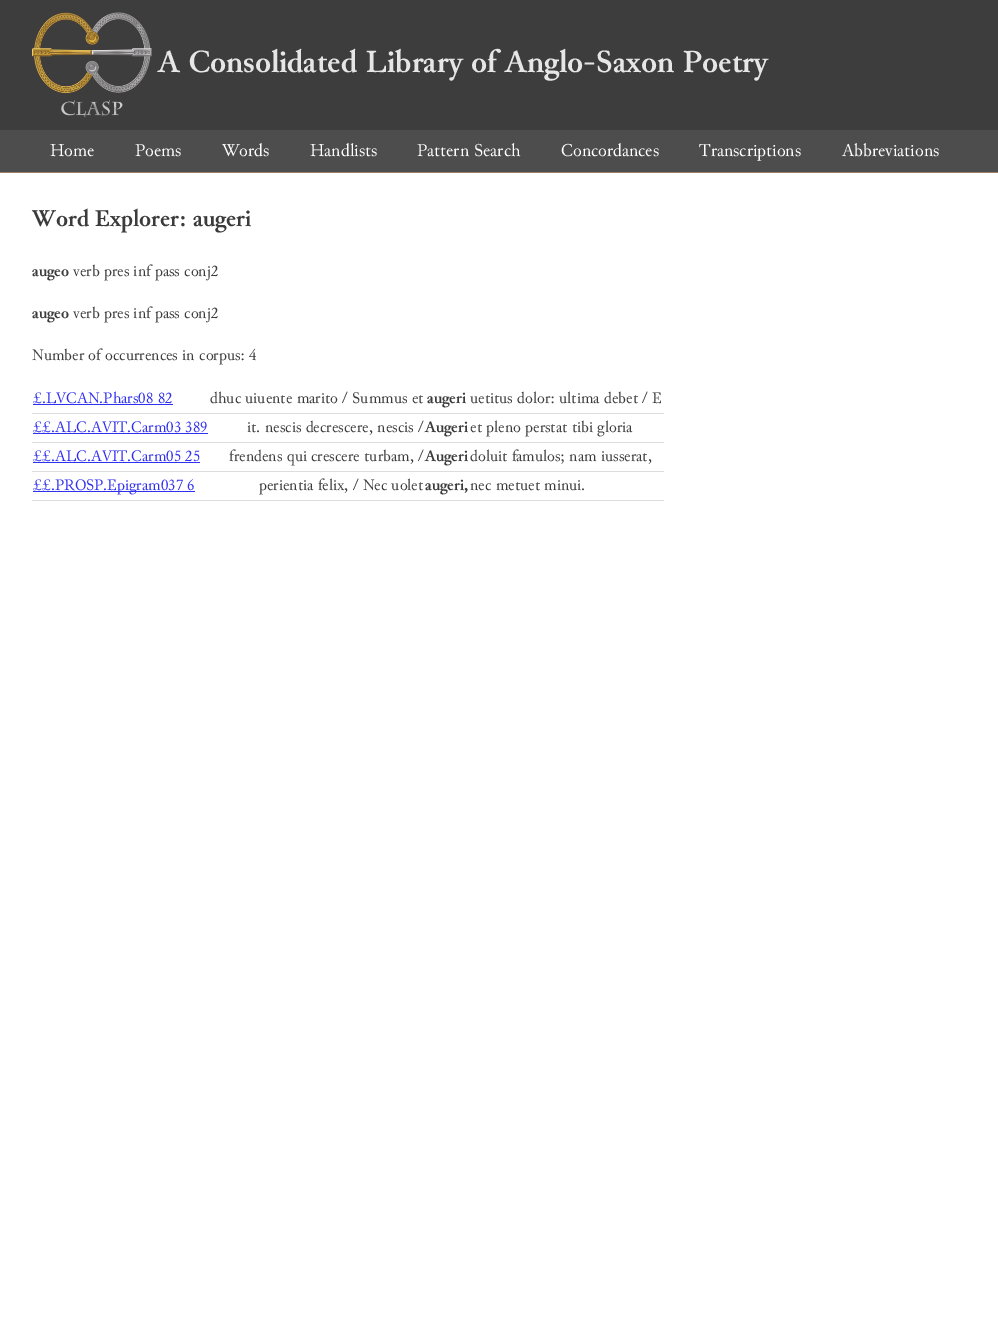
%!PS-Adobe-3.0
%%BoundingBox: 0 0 998 1319
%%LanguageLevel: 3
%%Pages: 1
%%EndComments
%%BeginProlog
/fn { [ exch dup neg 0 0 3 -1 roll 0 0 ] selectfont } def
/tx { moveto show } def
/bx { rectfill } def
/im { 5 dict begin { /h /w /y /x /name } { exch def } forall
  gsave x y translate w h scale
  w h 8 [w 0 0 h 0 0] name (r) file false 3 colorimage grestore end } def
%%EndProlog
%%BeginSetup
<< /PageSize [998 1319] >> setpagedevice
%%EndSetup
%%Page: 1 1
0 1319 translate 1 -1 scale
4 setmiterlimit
1 setgray
0 0 998 1319 bx
0.239 setgray
0 0 998 130 bx
(image0.raw) 32 12 120 106 im
/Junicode-Bold 32 fn
0.902 setgray
(A Consolidated Library of Anglo-Saxon Poetry) 158 72 tx
0.302 setgray
0 130 998 42 bx
0.612 0.494 0.408 setrgbcolor
0 172 998 1 bx
/Junicode-Regular 18 fn
1 setgray
(Home) 50 156 tx
(Poems) 135 156 tx
(Words) 222 156 tx
(Handlists) 310 156 tx
(Pattern Search) 417 156 tx
(Concordances) 561 156 tx
(Transcriptions) 699 156 tx
(Abbreviations) 842 156 tx
/Junicode-Bold 24 fn
0.231 setgray
(Word Explorer: augeri) 32 226 tx
/Junicode-Bold 16 fn
(augeo) 32 276 tx
/Junicode-Regular 16 fn
(verb pres inf pass conj2) 73 276 tx
/Junicode-Bold 16 fn
(augeo) 32 318 tx
/Junicode-Regular 16 fn
(verb pres inf pass conj2) 73 318 tx
(Number of occurrences in corpus: 4) 32 360 tx
0.188 0.188 0.941 setrgbcolor
(£.LVCAN.Phars08 82) 33 403 tx
33 404 140 1 bx
0.231 setgray
(dhuc uiuente marito / Summus et) 210 403 tx
/Junicode-Bold 16 fn
(augeri) 427 403 tx
0.867 setgray
32 413 632 1 bx
/Junicode-Regular 16 fn
0.231 setgray
(uetitus dolor: ultima debet / E) 470 403 tx
0.188 0.188 0.941 setrgbcolor
(££.ALC.AVIT.Carm03 389) 33 432 tx
33 433 175 1 bx
0.231 setgray
(it. nescis decrescere, nescis /) 247 432 tx
/Junicode-Bold 16 fn
(Augeri) 425 432 tx
0.867 setgray
32 442 632 1 bx
/Junicode-Regular 16 fn
0.231 setgray
(et pleno perstat tibi gloria) 470 432 tx
0.188 0.188 0.941 setrgbcolor
(££.ALC.AVIT.Carm05 25) 33 461 tx
33 462 167 1 bx
0.231 setgray
(frendens qui crescere turbam, /) 229 461 tx
/Junicode-Bold 16 fn
(Augeri) 425 461 tx
0.867 setgray
32 471 632 1 bx
/Junicode-Regular 16 fn
0.231 setgray
(doluit famulos; nam iusserat,) 470 461 tx
0.188 0.188 0.941 setrgbcolor
33 491 162 1 bx
(££.PROSP.Epigram037 6) 33 490 tx
0.231 setgray
(perientia felix, / Nec uolet) 259 490 tx
/Junicode-Bold 16 fn
(augeri,) 425 490 tx
0.867 setgray
32 500 632 1 bx
/Junicode-Regular 16 fn
0.231 setgray
(nec metuet minui.) 470 490 tx
showpage
%%EOF
